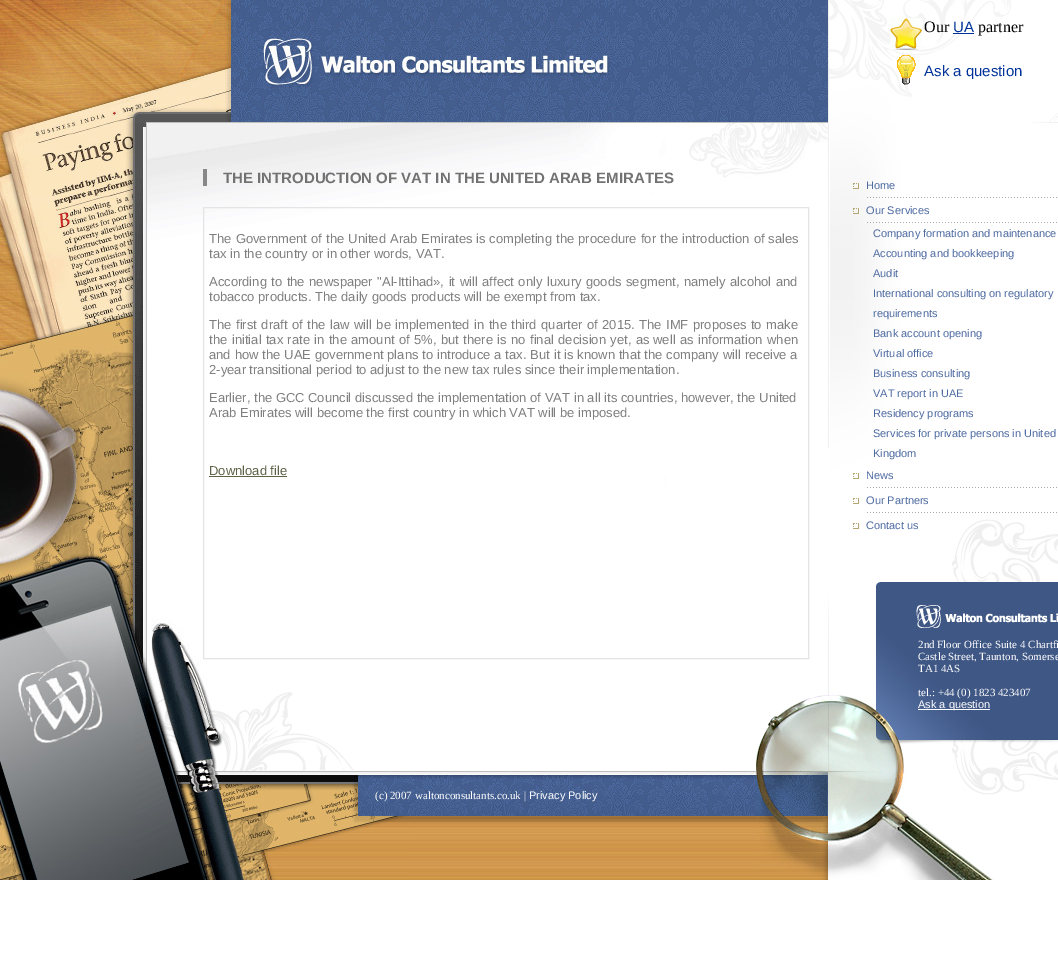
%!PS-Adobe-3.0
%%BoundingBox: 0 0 1058 977
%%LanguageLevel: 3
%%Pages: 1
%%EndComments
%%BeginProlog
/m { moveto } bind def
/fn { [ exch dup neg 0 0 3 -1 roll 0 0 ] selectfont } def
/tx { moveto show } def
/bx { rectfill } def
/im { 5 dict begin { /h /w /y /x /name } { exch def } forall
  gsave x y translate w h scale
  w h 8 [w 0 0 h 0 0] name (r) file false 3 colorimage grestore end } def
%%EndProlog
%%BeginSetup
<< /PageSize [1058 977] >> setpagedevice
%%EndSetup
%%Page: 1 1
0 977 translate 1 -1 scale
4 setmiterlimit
1 setgray
0 0 1058 977 bx
(image0.raw) 614 0 214 123 im
(image1.raw) 0 0 614 123 im
(image2.raw) 828 0 183 123 im
(image3.raw) 1033 113 25 10 im
(image4.raw) 890 18 32 32 im
/LiberationSerif-Regular 16 fn
0 setgray
(Our) 924 32 tx
/LiberationSans-Regular 15 fn
0 0.2 0.6 setrgbcolor
(UA) 953 32 tx
953 33 21 1 bx
/LiberationSerif-Regular 16 fn
0 setgray
(partner) 978 32 tx
(image5.raw) 897 55 19 30 im
/LiberationSans-Regular 15 fn
0 0.2 0.6 setrgbcolor
(Ask a question) 924 76 tx
(image6.raw) 0 123 135 757 im
(image7.raw) 135 123 531 565 im
(image8.raw) 689 123 139 55 im
0.533 setgray
203 169 4 17 bx
/LiberationSans-Bold 15 fn
0.447 setgray
(THE INTRODUCTION OF VAT IN THE UNITED ARAB EMIRATES) 223 183 tx
0.894 setgray
203.5 207.5 605 451 rectstroke
/LiberationSans-Regular 13 fn
0.498 setgray
209 243 m 0.5 0 32 (The Government of the United Arab Emirates) widthshow
(is) 476 243 tx
(completing) 489 243 tx
556 243 m 0.5 0 32 (the procedure for the introduction of sales) widthshow
(tax in the country or in other words, VAT.) 209 258 tx
209 286 m 0.9 0 32 (According to the newspaper "Al-Ittihad», it will affect only luxury goods segment, namely alcohol and) widthshow
(tobacco products. The daily goods products will be exempt from tax.) 209 301 tx
209 329 m 0.9 0 32 (The first draft of the law will be implemented in the third quarter of 2015.) widthshow
(T) 639 329 tx
647 329 m 0.9 0 32 (he IMF proposes to make) widthshow
(t) 209 344 tx
213 344 m 0.75 0 32 (he initial tax rate in the amount of 5%, but there is no) widthshow
530 344 m 0.75 0 32 (final decision yet, as) widthshow
653 344 m 0.75 0 32 (well as) widthshow
698 344 m 1 0 32 (information when) widthshow
209 359 m 0.25 0 32 (and how the UAE government plans to introduce a tax) widthshow
(. B) 523 359 tx
539 359 m 0.25 0 32 (ut it is known that the company will receive a) widthshow
(2-year transitional period to adjust to the new tax rules since their implementation.) 209 374 tx
(Earlier) 209 402 tx
(, the) 247 402 tx
(GCC) 276 402 tx
308 402 m 0.1 0 32 (Council discussed the implementation of VAT in all its countries, however, the United) widthshow
(Arab Emirates will become the first country in which VAT will be imposed.) 209 417 tx
0.369 0.384 0.278 setrgbcolor
(Download file) 209 475 tx
209 476 78 1 bx
(image9.raw) 358 771 398 109 im
(image10.raw) 135 688 275 192 im
(image11.raw) 756 695 72 185 im
/LiberationSerif-Regular 11 fn
1 setgray
(\(c\) 2007 waltonconsultants.co.uk |) 375 799 tx
/LiberationSans-Regular 11 fn
(Privacy Policy) 529 799 tx
(image12.raw) 828 123 230 757 im
(image13.raw) 853 183 204 15 im
0.302 0.416 0.631 setrgbcolor
(Home) 866 189 tx
(image14.raw) 853 208 204 15 im
(Our Services) 866 214 tx
(Company formation and maintenance) 873 237 tx
(Accounting and bookkeeping) 873 257 tx
(Audit) 873 277 tx
(International consulting on regulatory) 873 297 tx
(requirements) 873 317 tx
(Bank account opening) 873 337 tx
(Virtual office) 873 357 tx
(Business consulting) 873 377 tx
(VAT report in UAE) 873 397 tx
(Residency programs) 873 417 tx
(Services for private persons in United) 873 437 tx
(Kingdom) 873 457 tx
(image15.raw) 853 473 204 15 im
(News) 866 479 tx
(image15.raw) 853 498 204 15 im
(Our Partners) 866 504 tx
(image16.raw) 853 523 7 6 im
(Contact us) 866 529 tx
/LiberationSerif-Regular 11 fn
1 setgray
(2nd Floor Office Suite 4 Chartfi) 918 648 tx
(Castle Street, Taunton, Somerse) 918 660 tx
(TA1 4AS) 918 672 tx
(tel.: +44 \(0\) 1823 423407) 918 696 tx
918 709 72 1 bx
/LiberationSans-Regular 11 fn
(Ask a question) 918 708 tx
showpage
%%EOF
